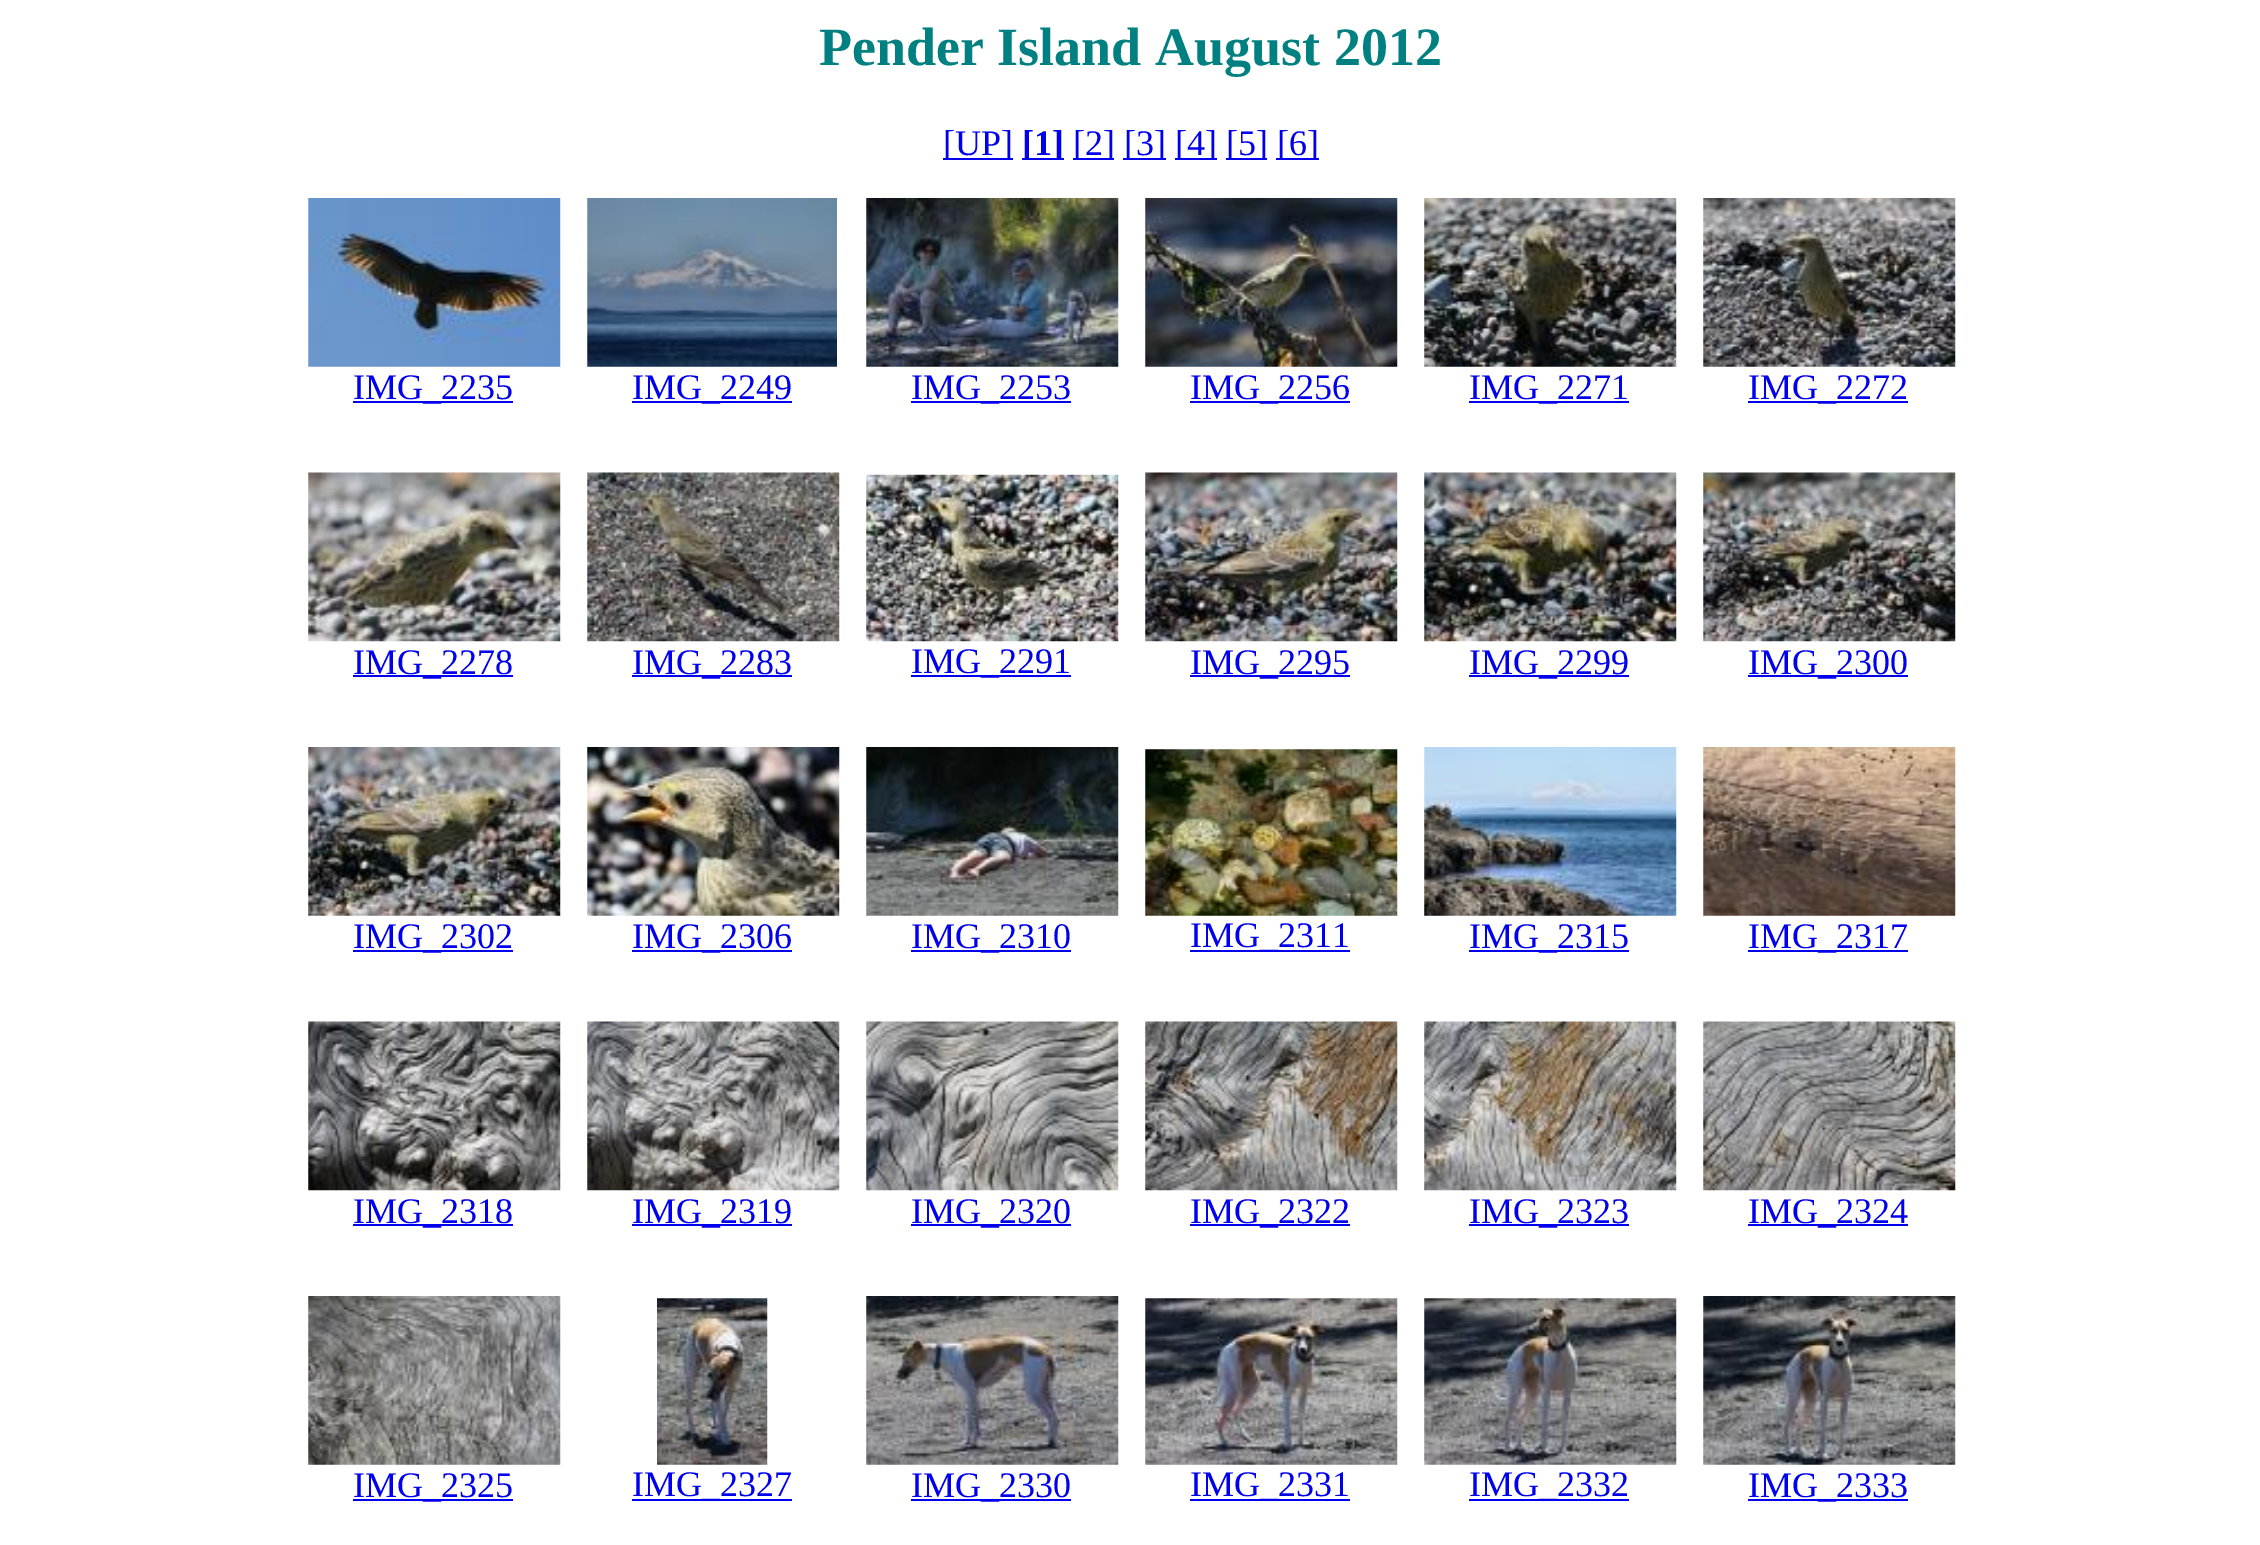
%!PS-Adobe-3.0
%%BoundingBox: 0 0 2260 1545
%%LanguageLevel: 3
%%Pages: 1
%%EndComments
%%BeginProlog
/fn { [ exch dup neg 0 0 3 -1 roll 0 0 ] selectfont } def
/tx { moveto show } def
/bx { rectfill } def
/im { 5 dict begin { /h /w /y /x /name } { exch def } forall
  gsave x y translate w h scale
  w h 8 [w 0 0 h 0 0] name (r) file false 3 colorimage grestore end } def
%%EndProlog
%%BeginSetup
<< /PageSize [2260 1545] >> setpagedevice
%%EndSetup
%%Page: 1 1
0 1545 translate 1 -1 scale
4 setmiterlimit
1 setgray
0 0 2260 1545 bx
/LiberationSerif-Bold 54 fn
0 0.502 0.502 setrgbcolor
(Pender Island August 2012) 819 65 tx
0 0 0.933 setrgbcolor
943 158 70 2 bx
/LiberationSerif-Regular 36 fn
([UP]) 943 155 tx
1022 158 42 2 bx
/LiberationSerif-Bold 36 fn
([1]) 1022 155 tx
1073 158 41 2 bx
/LiberationSerif-Regular 36 fn
([2]) 1073 155 tx
1123 158 43 2 bx
([3]) 1124 155 tx
1175 158 42 2 bx
([4]) 1175 155 tx
1226 158 41 2 bx
([5]) 1226 155 tx
1276 158 43 2 bx
([6]) 1277 155 tx
(image0.raw) 308 198 253 169 im
353 401 160 2 bx
(IMG_2235) 353 399 tx
(image1.raw) 587 198 250 169 im
632 401 160 2 bx
(IMG_2249) 632 399 tx
(image2.raw) 866 198 253 169 im
911 401 160 2 bx
(IMG_2253) 911 399 tx
(image3.raw) 1145 198 253 169 im
1190 401 160 2 bx
(IMG_2256) 1190 399 tx
(image4.raw) 1424 198 253 169 im
1469 401 160 2 bx
(IMG_2271) 1469 399 tx
(image5.raw) 1703 198 253 169 im
1748 401 160 2 bx
(IMG_2272) 1748 399 tx
(image6.raw) 308 472 253 170 im
353 675 160 2 bx
(IMG_2278) 353 674 tx
(image7.raw) 587 472 253 170 im
632 675 160 2 bx
(IMG_2283) 632 674 tx
(image8.raw) 866 474 253 168 im
911 675 160 2 bx
(IMG_2291) 911 673 tx
(image9.raw) 1145 472 253 170 im
1190 675 160 2 bx
(IMG_2295) 1190 674 tx
(image10.raw) 1424 472 253 170 im
1469 675 160 2 bx
(IMG_2299) 1469 674 tx
(image11.raw) 1703 472 253 170 im
1748 675 160 2 bx
(IMG_2300) 1748 674 tx
(image12.raw) 308 747 253 169 im
353 950 160 2 bx
(IMG_2302) 353 948 tx
(image13.raw) 587 747 253 169 im
632 950 160 2 bx
(IMG_2306) 632 948 tx
(image14.raw) 866 747 253 169 im
911 950 160 2 bx
(IMG_2310) 911 948 tx
(image15.raw) 1145 749 253 167 im
1190 950 160 2 bx
(IMG_2311) 1190 947 tx
(image16.raw) 1424 747 253 169 im
1469 950 160 2 bx
(IMG_2315) 1469 948 tx
(image17.raw) 1703 747 253 169 im
1748 950 160 2 bx
(IMG_2317) 1748 948 tx
(image18.raw) 308 1021 253 170 im
353 1224 160 2 bx
(IMG_2318) 353 1223 tx
(image19.raw) 587 1021 253 170 im
632 1224 160 2 bx
(IMG_2319) 632 1223 tx
(image20.raw) 866 1021 253 170 im
911 1224 160 2 bx
(IMG_2320) 911 1223 tx
(image21.raw) 1145 1021 253 170 im
1190 1224 160 2 bx
(IMG_2322) 1190 1223 tx
(image22.raw) 1424 1021 253 170 im
1469 1224 160 2 bx
(IMG_2323) 1469 1223 tx
(image23.raw) 1703 1021 253 170 im
1748 1224 160 2 bx
(IMG_2324) 1748 1223 tx
(image24.raw) 308 1296 253 169 im
353 1499 160 2 bx
(IMG_2325) 353 1497 tx
(image25.raw) 657 1298 111 167 im
632 1499 160 2 bx
(IMG_2327) 632 1496 tx
(image26.raw) 866 1296 253 169 im
911 1499 160 2 bx
(IMG_2330) 911 1497 tx
(image27.raw) 1145 1298 253 167 im
1190 1499 160 2 bx
(IMG_2331) 1190 1496 tx
(image28.raw) 1424 1298 253 167 im
1469 1499 160 2 bx
(IMG_2332) 1469 1496 tx
(image29.raw) 1703 1296 253 169 im
1748 1499 160 2 bx
(IMG_2333) 1748 1497 tx
showpage
%%EOF
